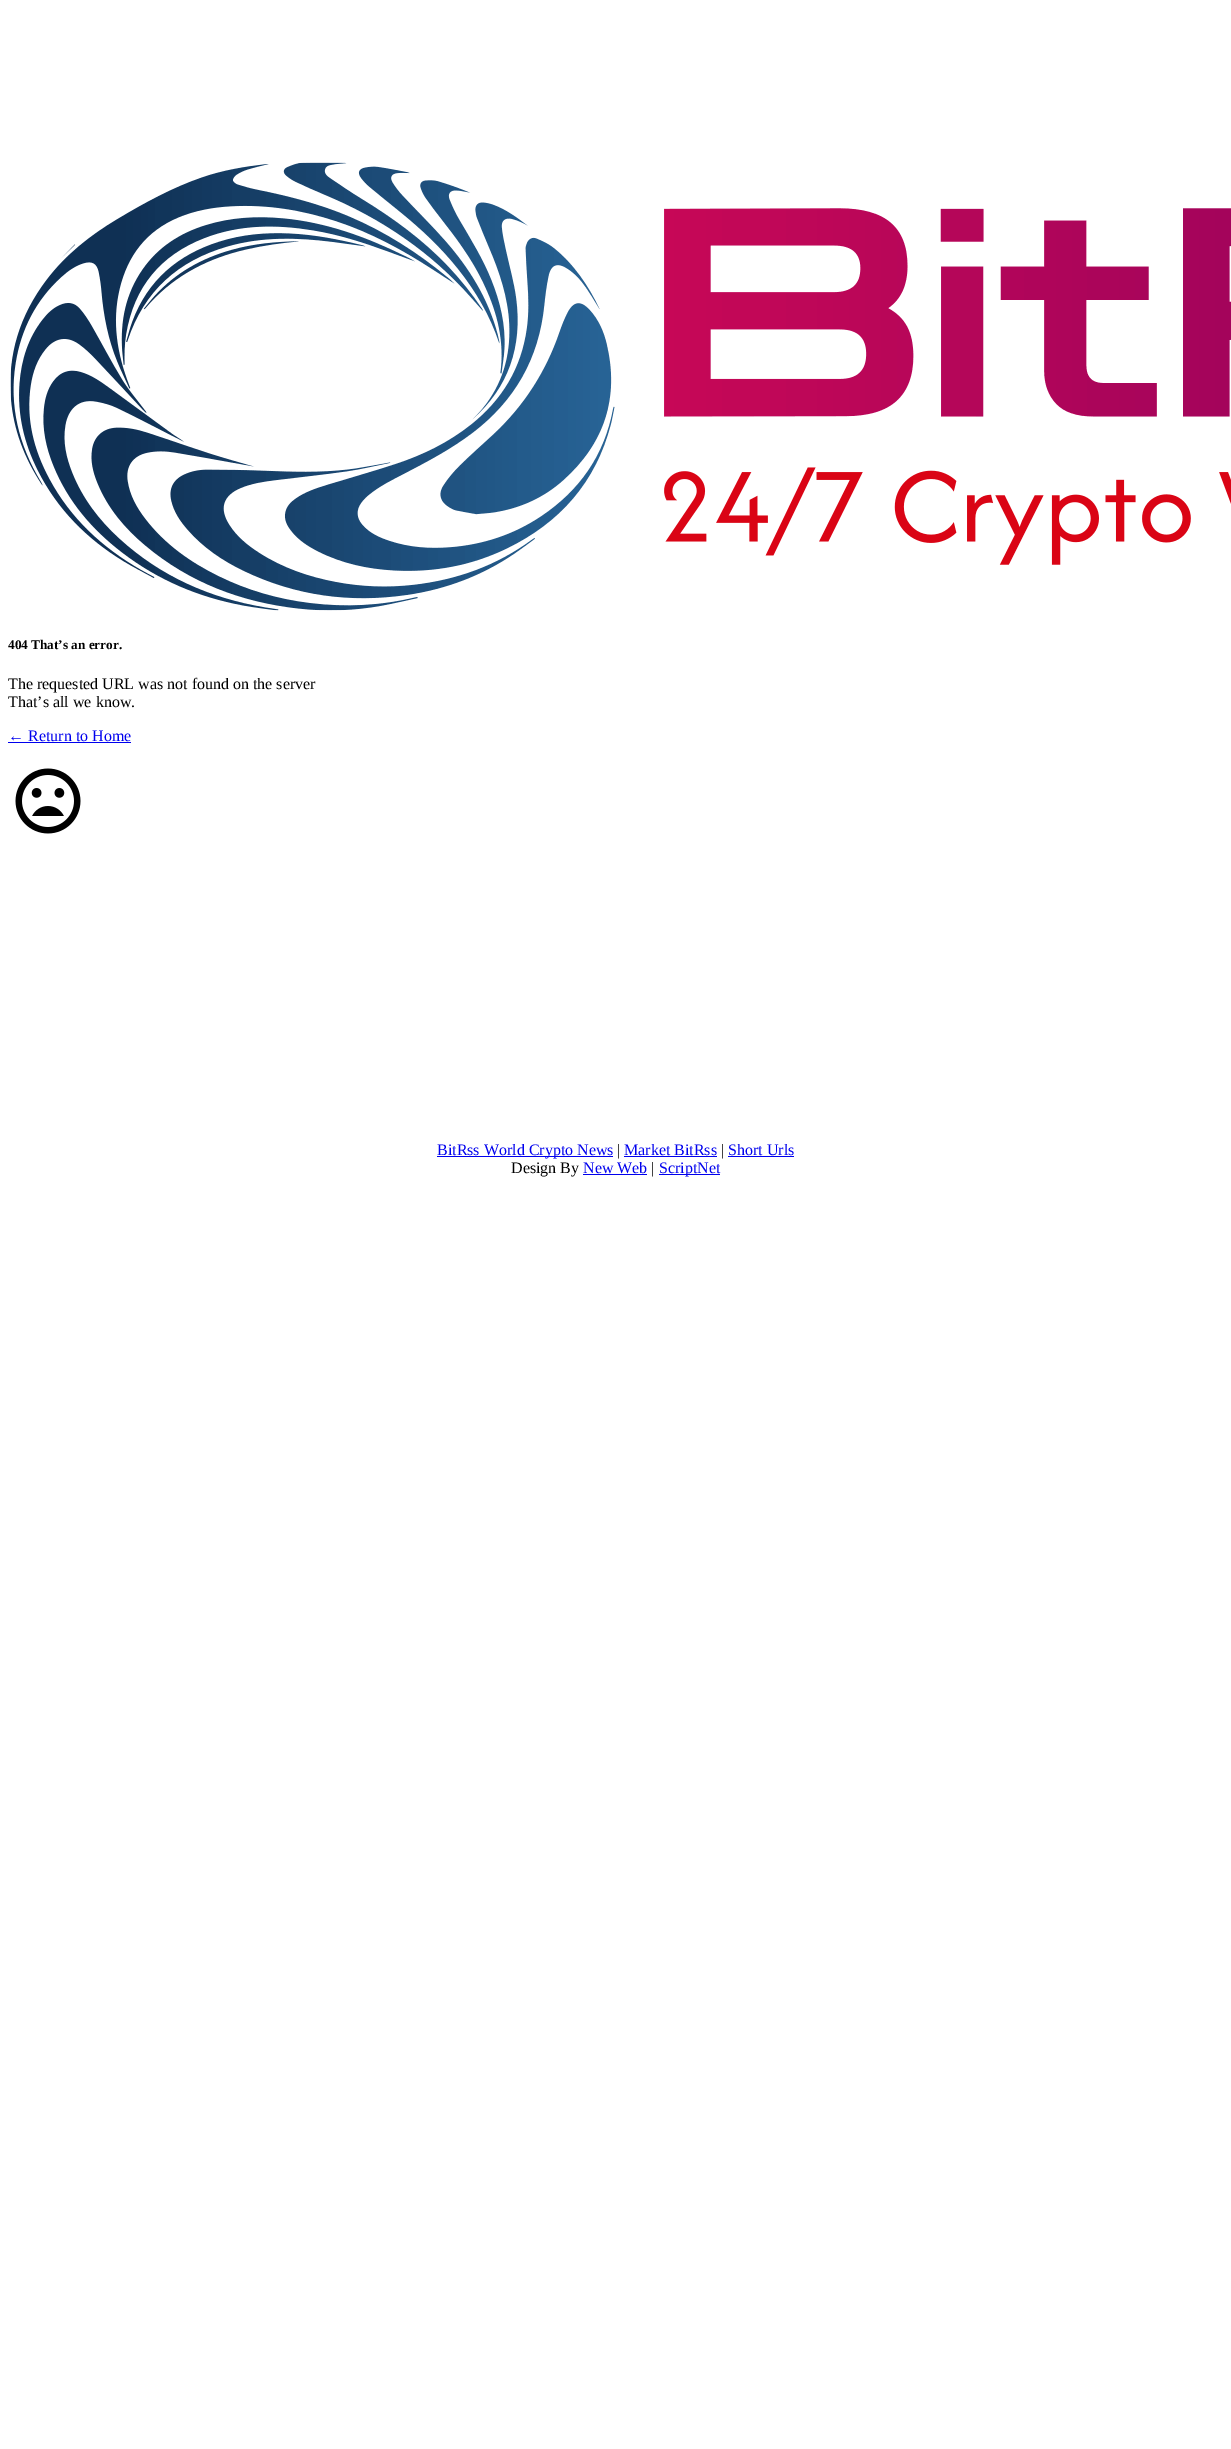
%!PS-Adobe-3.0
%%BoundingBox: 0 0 1231 2449
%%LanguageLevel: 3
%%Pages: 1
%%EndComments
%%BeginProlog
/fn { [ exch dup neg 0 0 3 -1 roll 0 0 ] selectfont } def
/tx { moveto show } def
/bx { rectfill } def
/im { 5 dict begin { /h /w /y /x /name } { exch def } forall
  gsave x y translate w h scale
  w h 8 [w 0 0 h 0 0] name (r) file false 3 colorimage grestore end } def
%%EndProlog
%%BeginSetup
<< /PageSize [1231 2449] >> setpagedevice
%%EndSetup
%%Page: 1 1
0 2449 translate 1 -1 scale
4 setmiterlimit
1 setgray
0 0 1231 2449 bx
(image0.raw) 10 162 1221 449 im
/LiberationSerif-Bold 13.25 fn
0 setgray
(404 That’s an error.) 8 649 tx
/LiberationSerif-Regular 16 fn
(The requested URL was not found on the server) 8 689 tx
(That’s all we know.) 8 707 tx
0 0 0.933 setrgbcolor
(← Return to Home) 8 741 tx
8 742 123 1 bx
(image1.raw) 15 768 66 66 im
437 1156 176 1 bx
(BitRss World Crypto News) 437 1155 tx
0 setgray
(|) 617 1155 tx
0 0 0.933 setrgbcolor
(Market BitRss) 624 1155 tx
624 1156 93 1 bx
0 setgray
(|) 721 1155 tx
0 0 0.933 setrgbcolor
(Short Urls) 728 1155 tx
728 1156 66 1 bx
0 setgray
(Design By) 511 1173 tx
0 0 0.933 setrgbcolor
(New Web) 583 1173 tx
583 1174 64 1 bx
0 setgray
(|) 651 1173 tx
0 0 0.933 setrgbcolor
659 1174 61 1 bx
(ScriptNet) 659 1173 tx
showpage
%%EOF
